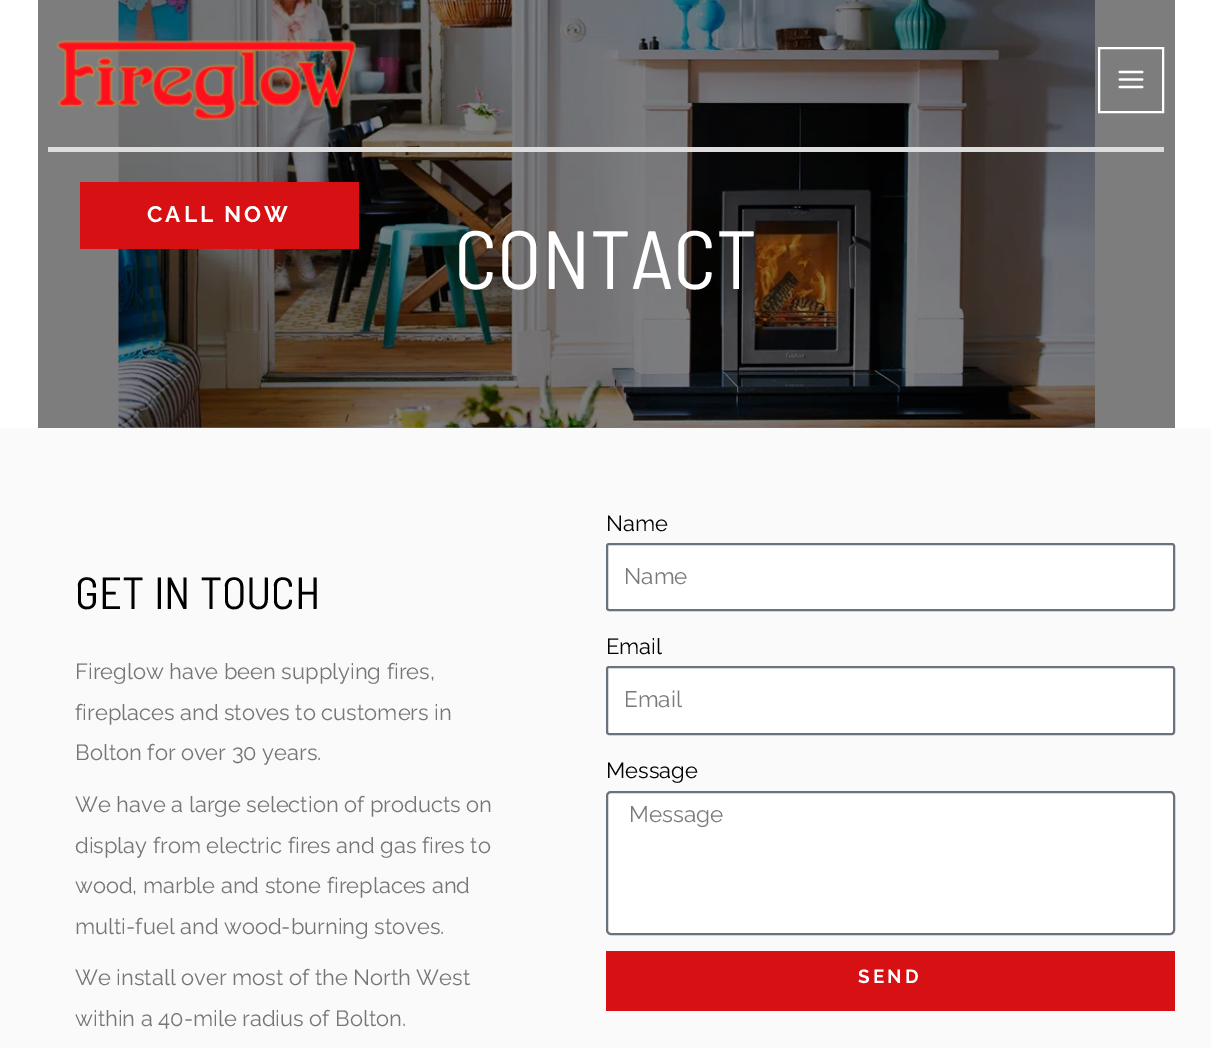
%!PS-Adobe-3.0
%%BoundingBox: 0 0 1211 1048
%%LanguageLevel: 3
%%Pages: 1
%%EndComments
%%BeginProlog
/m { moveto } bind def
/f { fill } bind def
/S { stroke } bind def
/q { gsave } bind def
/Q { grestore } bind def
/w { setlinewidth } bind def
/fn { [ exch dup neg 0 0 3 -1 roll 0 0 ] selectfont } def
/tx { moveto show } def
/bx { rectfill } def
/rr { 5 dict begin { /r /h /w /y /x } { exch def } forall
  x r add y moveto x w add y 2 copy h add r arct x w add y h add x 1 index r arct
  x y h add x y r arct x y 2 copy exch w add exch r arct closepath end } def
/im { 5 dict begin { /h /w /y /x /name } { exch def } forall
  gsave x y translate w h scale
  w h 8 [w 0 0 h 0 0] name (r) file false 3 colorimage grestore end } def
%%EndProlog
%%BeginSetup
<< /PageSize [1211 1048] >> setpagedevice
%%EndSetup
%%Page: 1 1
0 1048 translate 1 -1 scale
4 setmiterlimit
0.98 setgray
0 0 1211 1048 bx
0.49 setgray
38 0 1137 428 bx
(image2.raw) 118 0 977 428 im
0.867 setgray
48 147 1116 5 bx
(image0.raw) 56 40 301 81 im
1 setgray
2 w
1099 48 64 64 rectstroke
(image1.raw) 1118 70 26 19 im
0.843 0.063 0.075 setrgbcolor
80 182 279 67 bx
/Raleway-Bold 22.5 fn
1 setgray
147 222 m 3 0 (CALL NOW) ashow
1175 0 36 428 bx
0 0 38 428 bx
/BarlowSemiCondensed-Regular 82.5 fn
(CONTACT) 454 289 tx
/BarlowSemiCondensed-Regular 45 fn
0 setgray
(GET IN TOUCH) 75 609 tx
/Raleway-Regular 21.9 fn
0.459 setgray
(Fireglow have been supplying fires,) 75 679 tx
(fireplaces and stoves to customers in) 75 720 tx
(Bolton for over 30 years.) 75 760 tx
(We have a large selection of products on) 75 812 tx
(display from electric fires and gas fires to) 75 853 tx
(wood, marble and stone fireplaces and) 75 893 tx
(multi-fuel and wood-burning stoves.) 75 934 tx
(We install over most of the North West) 75 985 tx
(within a 40-mile radius of Bolton.) 75 1026 tx
0 setgray
(Name) 606 531 tx
1 setgray
607 544 567 66 2 rr q f Q
0.412 0.447 0.49 setrgbcolor
S
/Raleway-Regular 22.5 fn
0.475 0.478 0.486 setrgbcolor
(Name) 624 584 tx
/Raleway-Regular 21.9 fn
0 setgray
(Email) 606 654 tx
1 setgray
607 667 567 67 2 rr q f Q
0.412 0.447 0.49 setrgbcolor
S
/Raleway-Regular 22.5 fn
0.475 0.478 0.486 setrgbcolor
(Email) 624 707 tx
/Raleway-Regular 21.9 fn
0 setgray
(Message) 606 778 tx
1 setgray
607 792 567 142 4 rr q f Q
0.412 0.447 0.49 setrgbcolor
S
/Raleway-Regular 22.5 fn
0.475 0.478 0.486 setrgbcolor
(Message) 629 822 tx
0.843 0.063 0.075 setrgbcolor
606 951 569 60 bx
/Raleway-Bold 19 fn
1 setgray
858 983 m 3 0 (SEND) ashow
showpage
%%EOF
